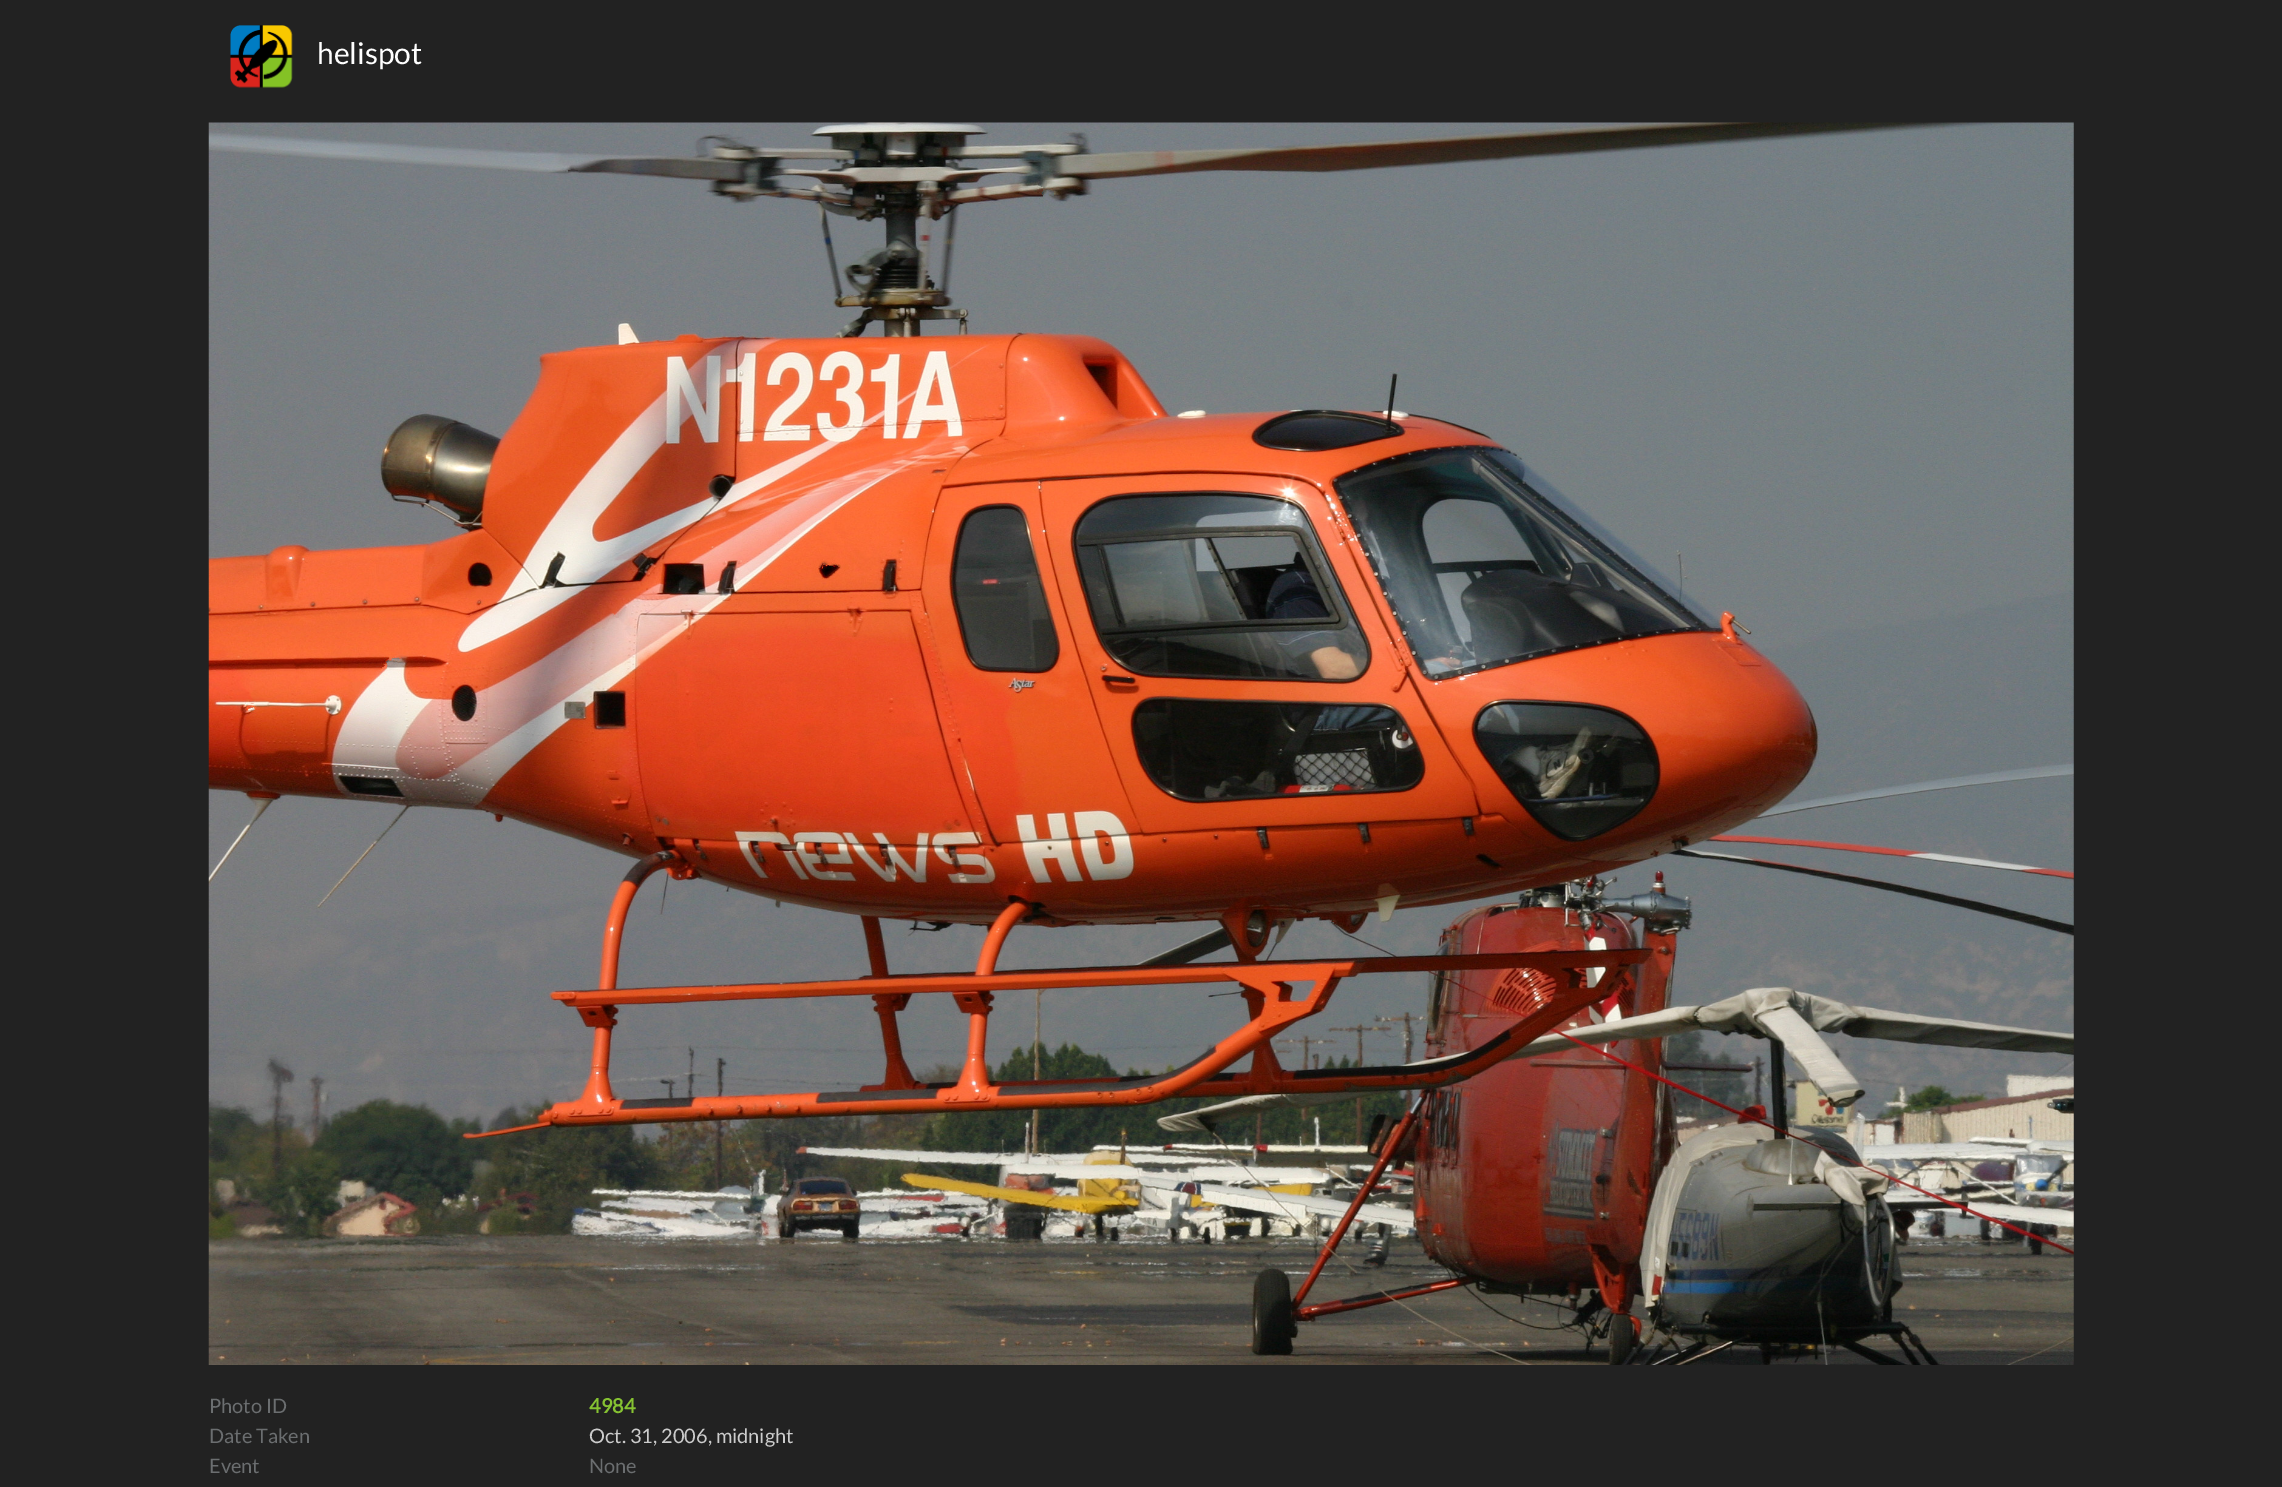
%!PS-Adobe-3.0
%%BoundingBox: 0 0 2282 1487
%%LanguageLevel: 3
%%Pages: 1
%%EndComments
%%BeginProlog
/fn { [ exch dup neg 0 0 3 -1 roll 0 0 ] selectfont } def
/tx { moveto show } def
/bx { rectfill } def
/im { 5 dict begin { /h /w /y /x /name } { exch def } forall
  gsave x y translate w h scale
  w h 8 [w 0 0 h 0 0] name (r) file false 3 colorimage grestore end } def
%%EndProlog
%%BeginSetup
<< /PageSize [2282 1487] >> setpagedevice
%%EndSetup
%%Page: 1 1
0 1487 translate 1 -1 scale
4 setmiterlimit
0.133 setgray
0 0 2282 1487 bx
(image0.raw) 230 25 63 63 im
/Lato-Regular 30 fn
1 setgray
(helispot) 317 64 tx
(image1.raw) 208 122 1866 1243 im
/Lato-Regular 20 fn
0.42 0.431 0.439 setrgbcolor
(Photo ID) 209 1413 tx
/Lato-Bold 20 fn
0.525 0.761 0.196 setrgbcolor
(4984) 589 1413 tx
/Lato-Regular 20 fn
0.42 0.431 0.439 setrgbcolor
(Date Taken) 209 1443 tx
0.8 setgray
(Oct. 31, 2006, midnight) 589 1443 tx
0.42 0.431 0.439 setrgbcolor
(Event) 209 1473 tx
(None) 589 1473 tx
showpage
%%EOF
